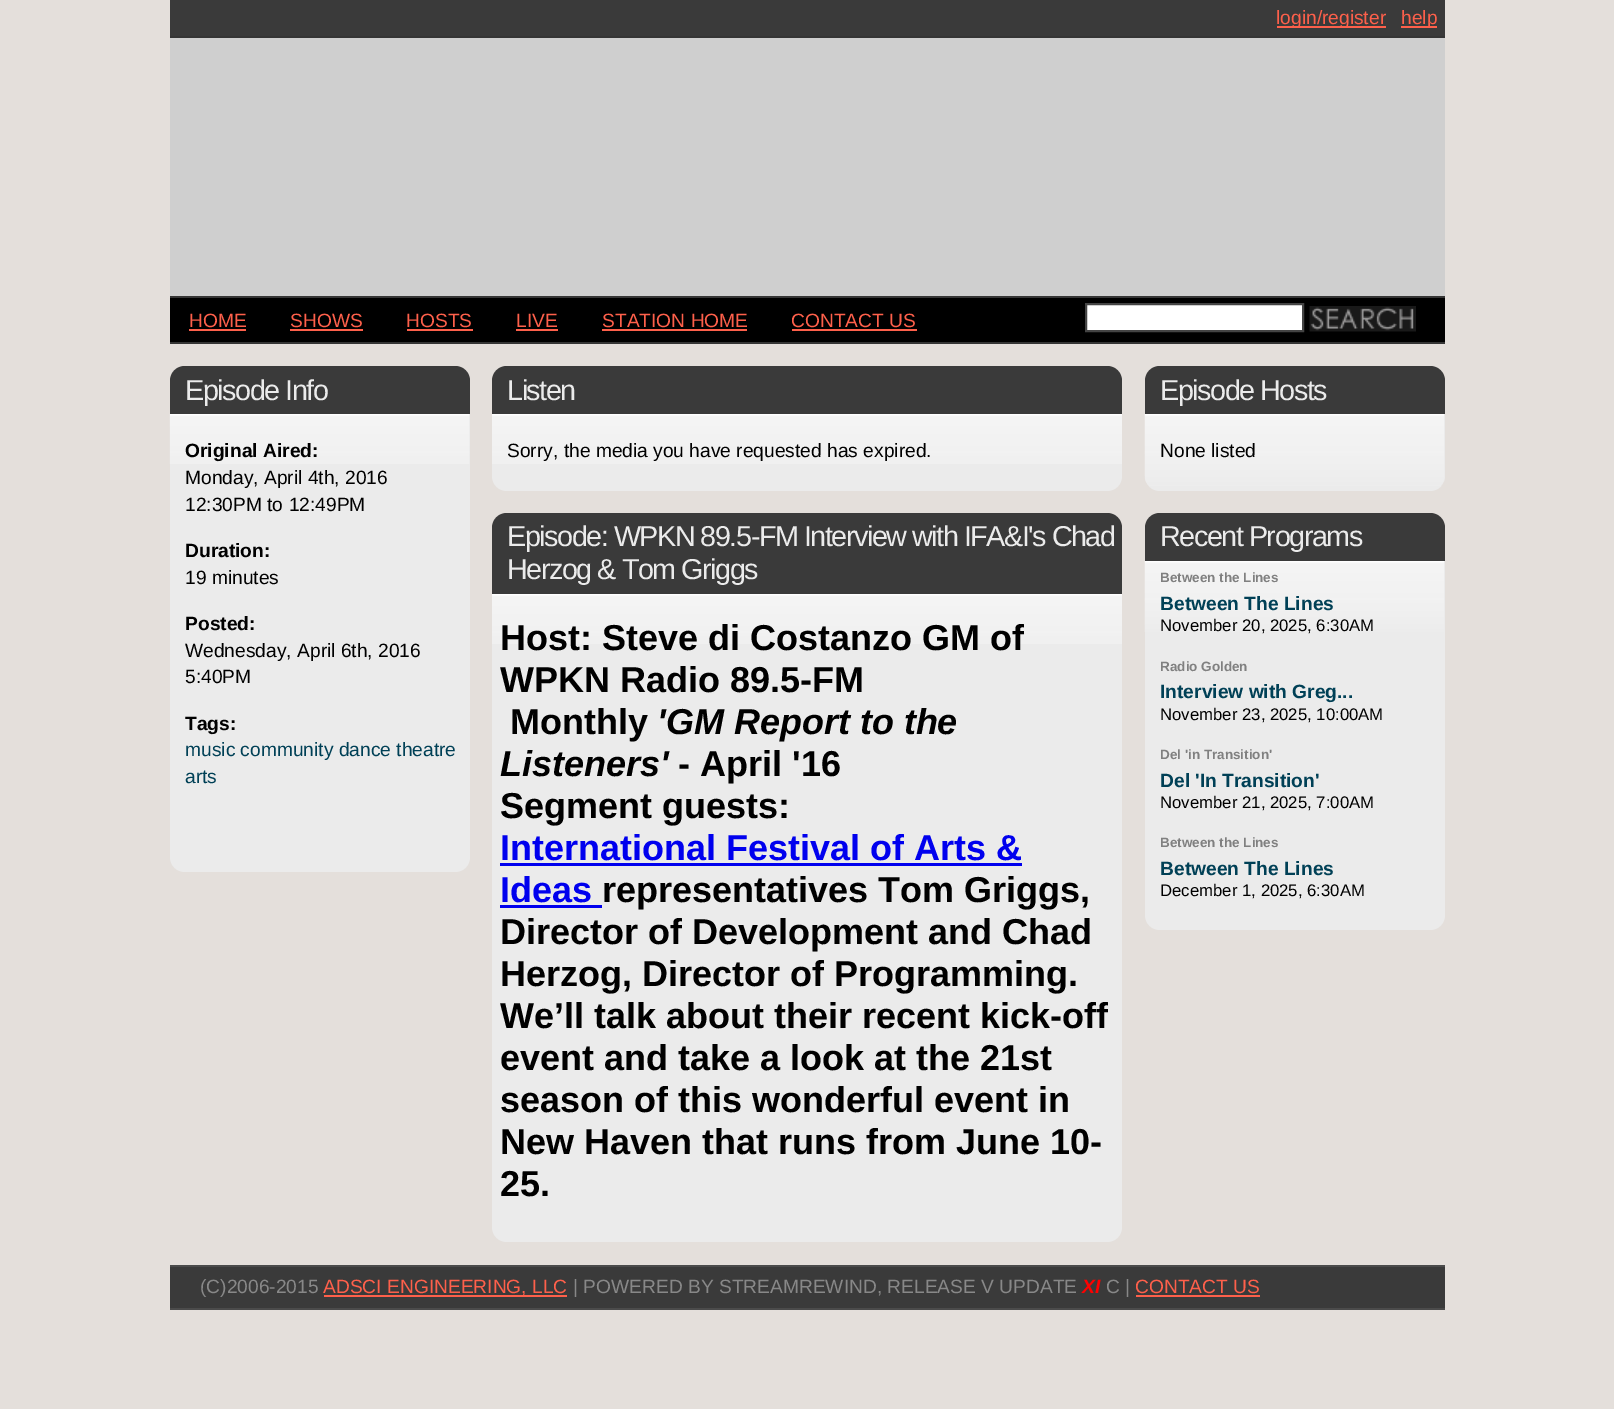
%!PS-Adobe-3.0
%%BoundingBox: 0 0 1614 1409
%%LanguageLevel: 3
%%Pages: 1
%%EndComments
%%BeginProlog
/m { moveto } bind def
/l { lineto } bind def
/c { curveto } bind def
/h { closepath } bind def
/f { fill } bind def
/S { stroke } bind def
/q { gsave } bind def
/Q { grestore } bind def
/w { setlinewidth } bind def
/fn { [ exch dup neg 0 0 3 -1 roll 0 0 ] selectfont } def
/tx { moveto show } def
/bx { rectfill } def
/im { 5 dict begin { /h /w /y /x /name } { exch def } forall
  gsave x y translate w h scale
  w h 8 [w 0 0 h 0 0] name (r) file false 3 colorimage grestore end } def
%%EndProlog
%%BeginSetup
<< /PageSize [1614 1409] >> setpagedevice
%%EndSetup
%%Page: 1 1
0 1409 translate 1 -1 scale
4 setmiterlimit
0.894 0.875 0.859 setrgbcolor
0 0 1614 1409 bx
0.227 setgray
170 0 1275 36 bx
0.208 setgray
170 36 1275 2 bx
0.996 0.376 0.294 setrgbcolor
1277 26 109 2 bx
/LiberationSans-Regular 19.2 fn
(login/register) 1276 24 tx
1401 26 36 2 bx
(help) 1401 24 tx
0.812 setgray
170 38 1275 258 bx
0 setgray
170 298 1275 44 bx
0.208 setgray
170 296 1275 2 bx
170 342 1275 2 bx
0.996 0.376 0.294 setrgbcolor
(HOME) 189 327 tx
189 329 57 2 bx
(SHOWS) 290 327 tx
290 329 73 2 bx
(HOSTS) 406 327 tx
407 329 66 2 bx
(LIVE) 516 327 tx
516 329 42 2 bx
(STATION HOME) 602 327 tx
602 329 145 2 bx
(CONTACT US) 791 327 tx
792 329 125 2 bx
1 setgray
1086 304 m 1303 304 l 1303 331 l 1086 331 l h q f Q
0.267 setgray
2 w
S
(image0.raw) 1309 306 107 26 im
0.227 setgray
185 366 m 455 366 l 463.5 366 470 372.5 470 381 c 470 414 l 170 414 l 170 381 l 170 372.5 176.5 366 185 366 c h f
/LiberationSans-Regular 28.8 fn
0.922 setgray
185 400 m -1.5 0 (Episode Info) ashow
170 414 m 470 414 l 470 857 l 470 865.5 463.5 872 455 872 c 185 872 l 176.5 872 170 865.5 170 857 c h f
(image1.raw) 169 414 301 50 im
/LiberationSans-Bold 19.2 fn
0 setgray
(Original Aired:) 185 457 tx
/LiberationSans-Regular 19.2 fn
(Monday, April 4th, 2016) 185 484 tx
(12:30PM to 12:49PM) 185 511 tx
/LiberationSans-Bold 19.2 fn
(Duration:) 185 557 tx
/LiberationSans-Regular 19.2 fn
(19 minutes) 185 584 tx
/LiberationSans-Bold 19.2 fn
(Posted:) 185 630 tx
/LiberationSans-Regular 19.2 fn
(Wednesday, April 6th, 2016) 185 657 tx
(5:40PM) 185 683 tx
/LiberationSans-Bold 19.2 fn
(Tags:) 185 730 tx
/LiberationSans-Regular 19.2 fn
0 0.251 0.337 setrgbcolor
(music community dance theatre) 185 756 tx
(arts) 185 783 tx
0.227 setgray
507 366 m 1107 366 l 1115.5 366 1122 372.5 1122 381 c 1122 414 l 492 414 l 492 381 l 492 372.5 498.5 366 507 366 c h f
/LiberationSans-Regular 28.8 fn
0.922 setgray
507 400 m -1.5 0 (Listen) ashow
492 414 m 1122 414 l 1122 476 l 1122 484.5 1115.5 491 1107 491 c 507 491 l 498.5 491 492 484.5 492 476 c h f
(image2.raw) 492 414 630 50 im
/LiberationSans-Regular 19.2 fn
0 setgray
(Sorry, the media you have requested has expired.) 507 457 tx
0.227 setgray
507 513 m 1107 513 l 1115.5 513 1122 519.5 1122 528 c 1122 594 l 492 594 l 492 528 l 492 519.5 498.5 513 507 513 c h f
/LiberationSans-Regular 28.8 fn
0.922 setgray
507 546 m -1.5 0 (Episode: WPKN 89.5-FM Interview with IFA&I's Chad) ashow
507 579 m -1.5 0 (Herzog & Tom Griggs) ashow
492 594 m 1122 594 l 1122 1227 l 1122 1235.5 1115.5 1242 1107 1242 c 507 1242 l 498.5 1242 492 1235.5 492 1227 c h f
(image2.raw) 492 594 630 50 im
/LiberationSans-Bold 36 fn
0 setgray
(Host: Steve di Costanzo GM of) 500 650 tx
(WPKN Radio 89.5-FM) 500 692 tx
(Monthly) 510 734 tx
/LiberationSans-BoldItalic 36 fn
('GM Report to the) 657 734 tx
(Listeners') 500 776 tx
/LiberationSans-Bold 36 fn
(- April '16) 678 776 tx
(Segment guests:) 500 818 tx
0 0 0.933 setrgbcolor
(International Festival of Arts &) 500 860 tx
500 863 522 3 bx
(Ideas) 500 902 tx
500 905 102 3 bx
0 setgray
(representatives Tom Griggs,) 602 902 tx
(Director of Development and Chad) 500 944 tx
(Herzog, Director of Programming.) 500 986 tx
(We’ll talk about their recent kick-off) 500 1028 tx
(event and take a look at the 21st) 500 1070 tx
(season of this wonderful event in) 500 1112 tx
(New Haven that runs from June 10-) 500 1154 tx
(25.) 500 1196 tx
0.227 setgray
1160 366 m 1430 366 l 1438.5 366 1445 372.5 1445 381 c 1445 414 l 1145 414 l 1145 381 l 1145 372.5 1151.5 366 1160 366 c h f
/LiberationSans-Regular 28.8 fn
0.922 setgray
1160 400 m -1.5 0 (Episode Hosts) ashow
1145 414 m 1445 414 l 1445 476 l 1445 484.5 1438.5 491 1430 491 c 1160 491 l 1151.5 491 1145 484.5 1145 476 c h f
(image3.raw) 1144 414 300 72 im
/LiberationSans-Regular 19.2 fn
0 setgray
(None listed) 1160 457 tx
0.227 setgray
1160 513 m 1430 513 l 1438.5 513 1445 519.5 1445 528 c 1445 561 l 1145 561 l 1145 528 l 1145 519.5 1151.5 513 1160 513 c h f
/LiberationSans-Regular 28.8 fn
0.922 setgray
1160 546 m -1.5 0 (Recent Programs) ashow
1145 561 m 1445 561 l 1445 915 l 1445 923.5 1438.5 930 1430 930 c 1160 930 l 1151.5 930 1145 923.5 1145 915 c h f
(image4.raw) 1144 561 300 71 im
/LiberationSans-Bold 13.5 fn
0.502 setgray
(Between the Lines) 1160 582 tx
/LiberationSans-Bold 19.2 fn
0 0.251 0.337 setrgbcolor
(Between The Lines) 1160 610 tx
/LiberationSans-Regular 16.75 fn
0 setgray
(November 20, 2025, 6:30AM) 1160 631 tx
/LiberationSans-Bold 13.5 fn
0.502 setgray
(Radio Golden) 1160 671 tx
/LiberationSans-Bold 19.2 fn
0 0.251 0.337 setrgbcolor
(Interview with Greg...) 1160 698 tx
/LiberationSans-Regular 16.75 fn
0 setgray
(November 23, 2025, 10:00AM) 1160 720 tx
/LiberationSans-Bold 13.5 fn
0.502 setgray
(Del 'in Transition') 1160 759 tx
/LiberationSans-Bold 19.2 fn
0 0.251 0.337 setrgbcolor
(Del 'In Transition') 1160 787 tx
/LiberationSans-Regular 16.75 fn
0 setgray
(November 21, 2025, 7:00AM) 1160 808 tx
/LiberationSans-Bold 13.5 fn
0.502 setgray
(Between the Lines) 1160 847 tx
/LiberationSans-Bold 19.2 fn
0 0.251 0.337 setrgbcolor
(Between The Lines) 1160 875 tx
/LiberationSans-Regular 16.75 fn
0 setgray
(December 1, 2025, 6:30AM) 1160 896 tx
0.227 setgray
170 1267 1275 41 bx
0.294 setgray
170 1265 1275 2 bx
170 1308 1275 2 bx
/LiberationSans-Regular 19.2 fn
0.533 setgray
(\(C\)2006-2015) 200 1293 tx
0.996 0.376 0.294 setrgbcolor
324 1295 243 2 bx
(ADSCI ENGINEERING, LLC) 323 1293 tx
0.533 setgray
(| POWERED BY STREAMREWIND, RELEASE V UPDATE) 573 1293 tx
/LiberationSans-BoldItalic 19.2 fn
1 0 0 setrgbcolor
(XI) 1082 1293 tx
/LiberationSans-Regular 19.2 fn
0.533 setgray
(C |) 1106 1293 tx
0.996 0.376 0.294 setrgbcolor
(CONTACT US) 1135 1293 tx
1136 1295 124 2 bx
showpage
%%EOF
